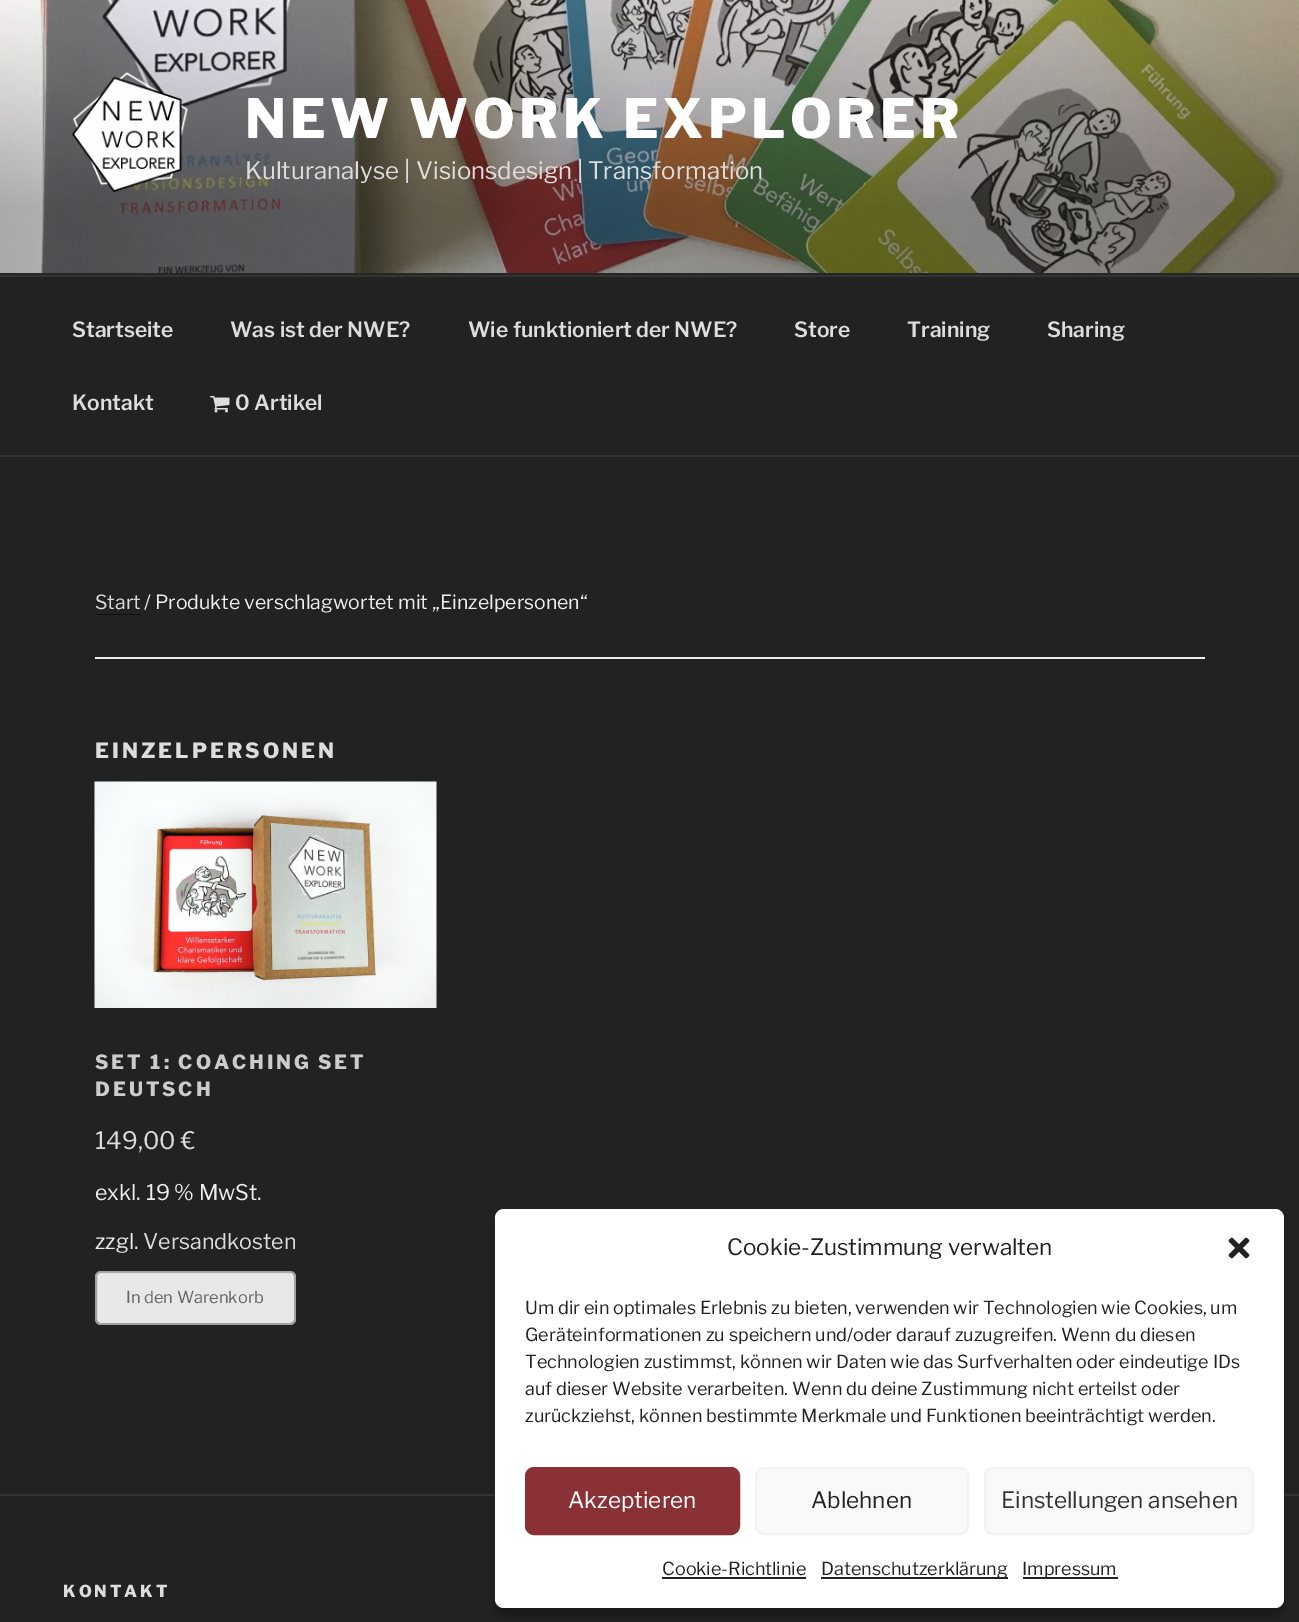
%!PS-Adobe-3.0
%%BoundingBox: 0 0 1299 1622
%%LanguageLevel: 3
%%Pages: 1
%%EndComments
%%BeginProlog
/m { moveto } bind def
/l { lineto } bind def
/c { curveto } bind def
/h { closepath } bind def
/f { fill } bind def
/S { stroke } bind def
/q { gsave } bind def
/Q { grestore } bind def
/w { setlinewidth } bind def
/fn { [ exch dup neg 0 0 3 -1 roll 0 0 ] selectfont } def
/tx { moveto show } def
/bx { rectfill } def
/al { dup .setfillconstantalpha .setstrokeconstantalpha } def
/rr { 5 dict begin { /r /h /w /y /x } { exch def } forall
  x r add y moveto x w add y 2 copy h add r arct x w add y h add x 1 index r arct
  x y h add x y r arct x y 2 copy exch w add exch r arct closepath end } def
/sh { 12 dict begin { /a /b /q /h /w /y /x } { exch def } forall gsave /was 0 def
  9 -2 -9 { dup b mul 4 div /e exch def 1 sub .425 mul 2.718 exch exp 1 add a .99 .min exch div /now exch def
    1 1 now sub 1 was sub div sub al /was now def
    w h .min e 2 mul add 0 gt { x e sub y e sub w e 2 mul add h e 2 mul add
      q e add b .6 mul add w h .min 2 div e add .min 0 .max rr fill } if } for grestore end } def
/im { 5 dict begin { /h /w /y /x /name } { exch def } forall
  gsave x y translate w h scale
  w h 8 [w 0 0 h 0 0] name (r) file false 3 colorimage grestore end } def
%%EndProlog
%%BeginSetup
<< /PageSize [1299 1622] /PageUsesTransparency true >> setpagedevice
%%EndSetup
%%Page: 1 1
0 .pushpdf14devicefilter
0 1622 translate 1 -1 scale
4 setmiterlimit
0.133 setgray
0 0 1299 1622 bx
0.149 setgray
0 273 1299 2 bx
(image0.raw) 0 0 1299 273 im
(image1.raw) 72 72 117 120 im
/LibreFranklin-Thin 54 fn
1 setgray
245 138 m 4.3 0 (NEW WORK EXPLORER) ashow
/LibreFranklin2-Thin 24 fn
0.867 setgray
(Kulturanalyse) 245 179 tx
(|) 404 179 tx
0.89 0.871 0.863 setrgbcolor
(Visionsdesign) 416 179 tx
0.867 setgray
(|) 577 179 tx
(Transformation) 588 179 tx
0.2 setgray
0 275 1299 2 bx
0 455 1299 2 bx
/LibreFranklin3-Thin 21 fn
0.867 setgray
(Startseite) 72 337 tx
(Was ist der NWE?) 230 337 tx
(Wie funktioniert der NWE?) 468 337 tx
(Store) 794 337 tx
(Training) 907 337 tx
(Sharing) 1047 337 tx
(Kontakt) 72 410 tx
(image2.raw) 210 396 20 17 im
(0 Artikel) 235 410 tx
0.933 setgray
95 657 1110 2 bx
/LibreFranklin2-Thin 19.5 fn
0.867 setgray
(Start) 95 609 tx
0.059 setgray
95 614 46 1 bx
0.933 setgray
(/ Produkte verschlagwortet mit „Einzelpersonen“) 144 609 tx
/LibreFranklin-Thin 21 fn
0.867 setgray
95 758 m 3 0 (EINZELPERSONEN) ashow
(image3.raw) 94 781 343 227 im
/LibreFranklin-Thin 19.5 fn
0.8 setgray
95 1069 m 2.9 0 (SET 1: COACHING SET) ashow
95 1096 m 2.9 0 (DEUTSCH) ashow
/LibreFranklin2-Thin 24 fn
0.867 setgray
(149,00 €) 95 1149 tx
/LibreFranklin2-Thin 21.5 fn
0.933 setgray
(exkl. 19 % MwSt.) 95 1200 tx
(zzgl.) 95 1249 tx
0.867 setgray
(Versandkosten) 143 1249 tx
0.91 setgray
95 1271 201 54 6 rr f
0.957 setgray
100 1274 m 290 1274 l 292 1274 294 1276 294 1278 c 294 1277 l 294 1274 292 1272 289 1272 c 101 1272 l 98 1272 96 1274 96 1277 c 96 1278 l 96 1276 98 1274 100 1274 c h f
0.3 al
0 setgray
2 w
96 1272 199 52 5 rr S
/LibreFranklin2-Thin 16.5 fn
1 al
0.396 setgray
(In den Warenkorb) 126 1303 tx
0.2 setgray
0 1494 1299 2 bx
/LibreFranklin-Thin 16.5 fn
0.867 setgray
63 1597 m 3 0 (KONTAKT) ashow
0 setgray
495 1218 789 399 9 4.5 0.23 sh
1 setgray
495 1209 789 399 9 rr f
/LibreFranklin2-Thin 22.5 fn
0.133 setgray
(Cookie-Zustimmung verwalten) 727 1255 tx
(image4.raw) 1228 1237 22 22 im
/LibreFranklin2-Thin 18 fn
(Um dir ein optimales Erlebnis zu bieten, verwenden wir Technologien wie Cookies, um) 525 1314 tx
(Geräteinformationen zu speichern und/oder darauf zuzugreifen. Wenn du diesen) 525 1341 tx
(Technologien zustimmst, können wir Daten wie das Surfverhalten oder eindeutige IDs) 525 1368 tx
(auf dieser Website verarbeiten. Wenn du deine Zustimmung nicht erteilst oder) 525 1395 tx
(zurückziehst, können bestimmte Merkmale und Funktionen beeinträchtigt werden.) 525 1422 tx
0.537 0.192 0.208 setrgbcolor
526 1468 213 66 8 rr q f Q
S
/LibreFranklin2-Thin 22.5 fn
1 setgray
(Akzeptieren) 568 1508 tx
0.976 setgray
756 1468 212 66 8 rr q f Q
0.949 setgray
S
0.133 setgray
(Ablehnen) 811 1508 tx
0.976 setgray
985 1468 268 66 8 rr q f Q
0.949 setgray
S
0.2 setgray
(Einstellungen ansehen) 1001 1508 tx
/LibreFranklin2-Thin 18 fn
0.133 setgray
(Cookie-Richtlinie) 662 1575 tx
662 1577 144 2 bx
821 1577 187 2 bx
(Datenschutzerklärung) 821 1575 tx
1023 1577 95 2 bx
(Impressum) 1022 1575 tx
.poppdf14devicefilter showpage
%%EOF
